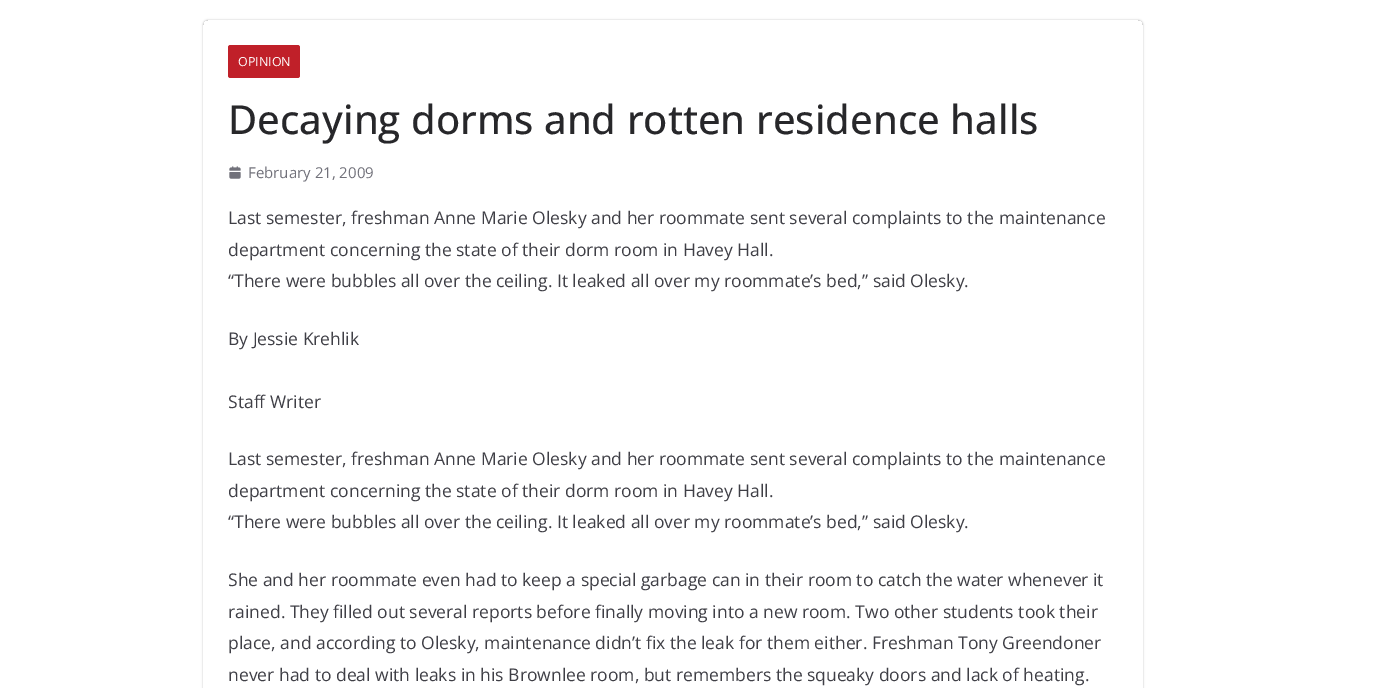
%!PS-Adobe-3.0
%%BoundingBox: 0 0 1382 688
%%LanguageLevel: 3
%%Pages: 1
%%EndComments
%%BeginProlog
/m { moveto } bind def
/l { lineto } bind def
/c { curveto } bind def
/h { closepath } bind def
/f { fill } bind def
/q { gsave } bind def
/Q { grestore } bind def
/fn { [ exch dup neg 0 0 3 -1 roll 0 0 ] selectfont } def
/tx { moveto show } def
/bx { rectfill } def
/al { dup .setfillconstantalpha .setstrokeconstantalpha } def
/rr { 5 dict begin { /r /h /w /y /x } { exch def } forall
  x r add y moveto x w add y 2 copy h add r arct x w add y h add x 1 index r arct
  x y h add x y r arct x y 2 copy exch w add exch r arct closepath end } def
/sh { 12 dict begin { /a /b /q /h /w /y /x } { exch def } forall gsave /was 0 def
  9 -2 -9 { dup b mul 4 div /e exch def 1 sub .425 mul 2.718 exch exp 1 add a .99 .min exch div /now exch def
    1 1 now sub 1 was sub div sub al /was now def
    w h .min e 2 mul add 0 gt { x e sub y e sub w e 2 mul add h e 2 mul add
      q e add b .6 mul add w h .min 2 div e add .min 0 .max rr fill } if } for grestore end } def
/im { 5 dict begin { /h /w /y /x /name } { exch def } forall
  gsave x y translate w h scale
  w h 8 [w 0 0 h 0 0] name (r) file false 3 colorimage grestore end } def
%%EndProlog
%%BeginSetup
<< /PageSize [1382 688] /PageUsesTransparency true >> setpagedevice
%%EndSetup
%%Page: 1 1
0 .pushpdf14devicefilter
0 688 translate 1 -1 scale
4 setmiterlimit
1 setgray
0 0 1382 688 bx
q
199 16 m 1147 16 l 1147 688 l 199 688 l h 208 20 m 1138 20 l 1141 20 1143 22 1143 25 c 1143 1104 l 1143 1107 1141 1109 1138 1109 c 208 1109 l 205 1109 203 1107 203 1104 c 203 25 l 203 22 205 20 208 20 c h eoclip newpath
0 setgray
203 20 940 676 5 1 0.24 sh
Q
0.753 0.125 0.161 setrgbcolor
228 45 72 33 2.5 rr f
/OpenSans-Regular 12.5 fn
1 setgray
(OPINION) 238 66 tx
/OpenSans-Medium 40 fn
0.153 0.153 0.165 setrgbcolor
(Decaying dorms and rotten residence halls) 228 134 tx
(image0.raw) 229 166 12 13 im
/OpenSans-Regular 15 fn
0.443 0.443 0.478 setrgbcolor
(February 21, 2009) 248 178 tx
/OpenSans-Regular 17.5 fn
0.247 0.247 0.275 setrgbcolor
(Last semester, freshman Anne Marie Olesky and her roommate sent several complaints to the maintenance) 228 224 tx
(department concerning the state of their dorm room in Havey Hall.) 228 256 tx
(“There were bubbles all over the ceiling. It leaked all over my roommate’s bed,” said Olesky.) 228 287 tx
(By Jessie Krehlik) 228 345 tx
(Staff Writer) 228 408 tx
(Last semester, freshman Anne Marie Olesky and her roommate sent several complaints to the maintenance) 228 465 tx
(department concerning the state of their dorm room in Havey Hall.) 228 497 tx
(“There were bubbles all over the ceiling. It leaked all over my roommate’s bed,” said Olesky.) 228 528 tx
(She and her roommate even had to keep a special garbage can in their room to catch the water whenever it) 228 586 tx
(rained. They filled out several reports before finally moving into a new room. Two other students took their) 228 618 tx
(place, and according to Olesky, maintenance didn’t fix the leak for them either. Freshman Tony Greendoner) 228 649 tx
(never had to deal with leaks in his Brownlee room, but remembers the squeaky doors and lack of heating.) 228 681 tx
.poppdf14devicefilter showpage
%%EOF
